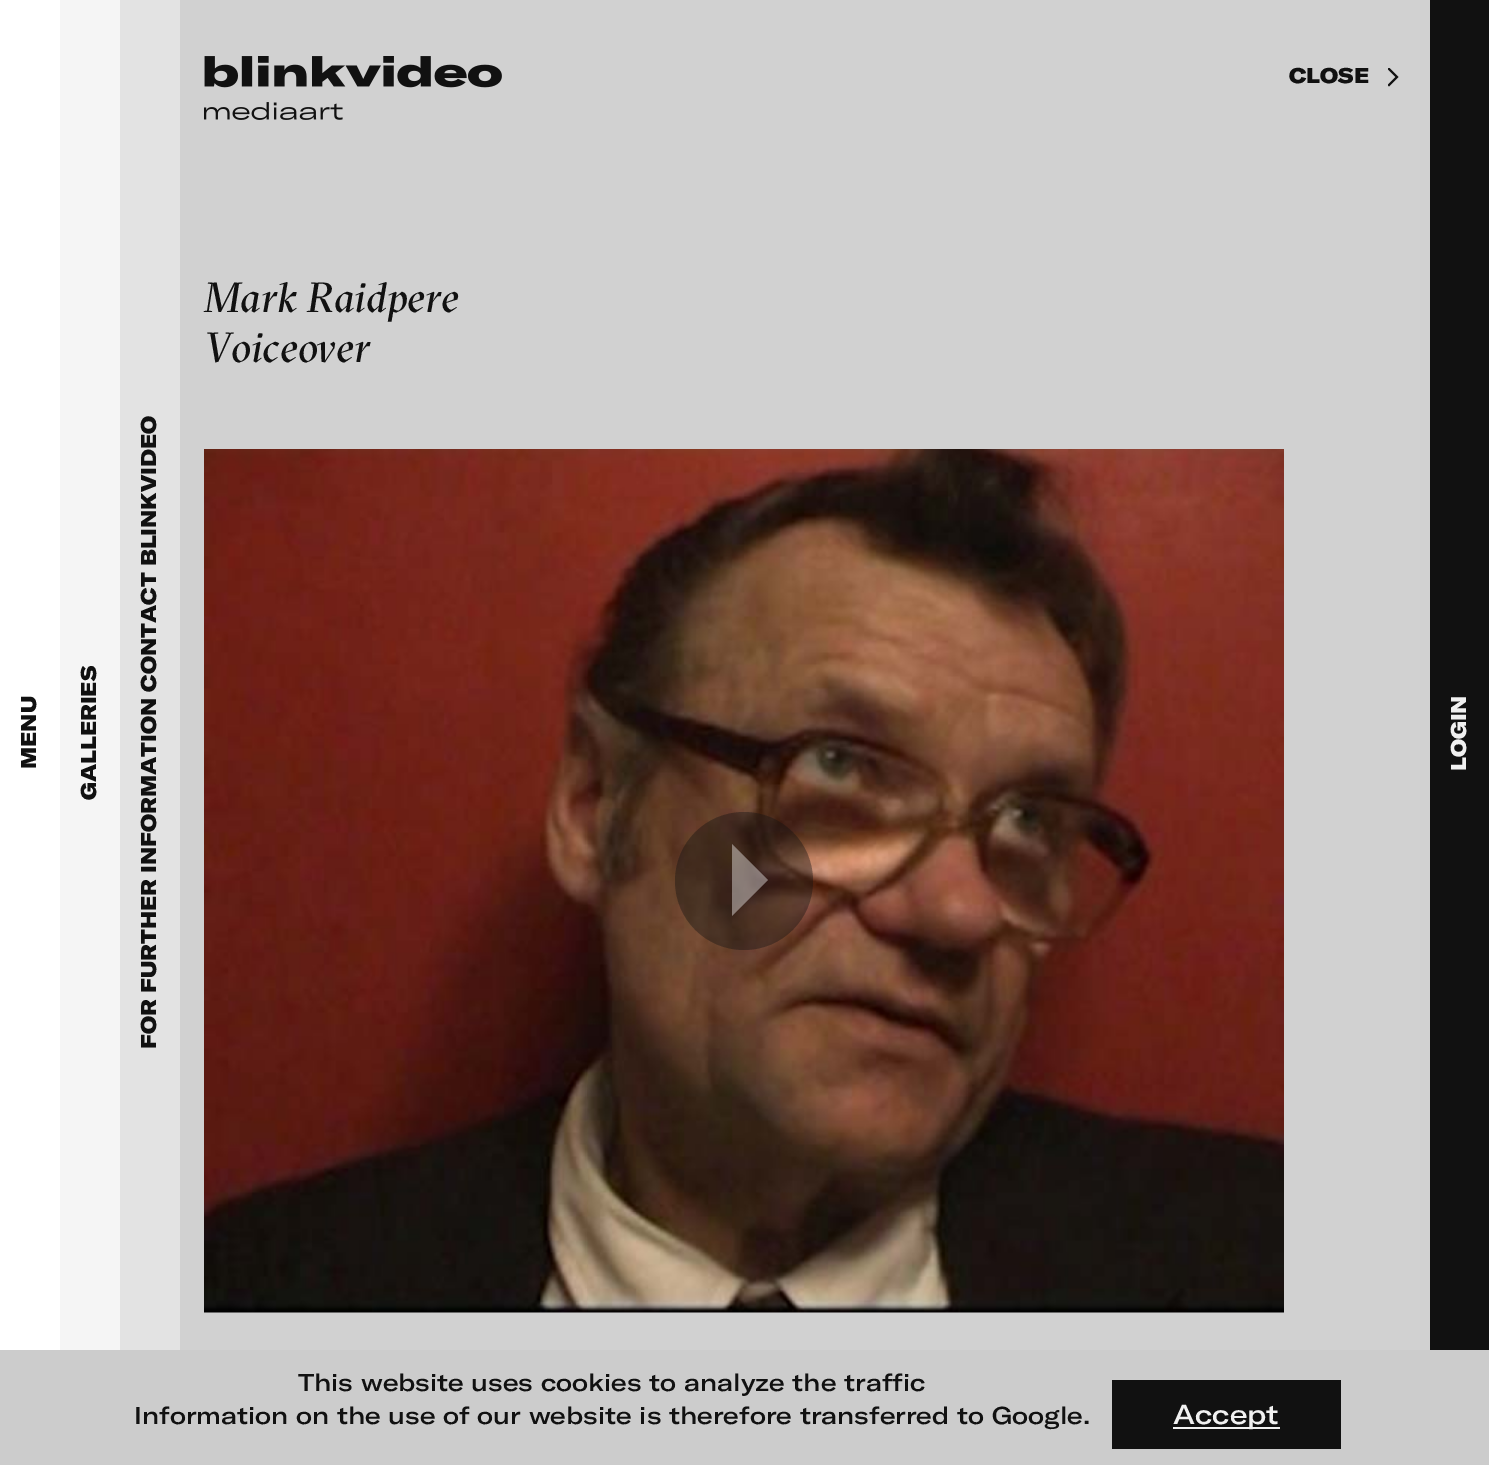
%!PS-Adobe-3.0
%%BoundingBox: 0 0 1489 1465
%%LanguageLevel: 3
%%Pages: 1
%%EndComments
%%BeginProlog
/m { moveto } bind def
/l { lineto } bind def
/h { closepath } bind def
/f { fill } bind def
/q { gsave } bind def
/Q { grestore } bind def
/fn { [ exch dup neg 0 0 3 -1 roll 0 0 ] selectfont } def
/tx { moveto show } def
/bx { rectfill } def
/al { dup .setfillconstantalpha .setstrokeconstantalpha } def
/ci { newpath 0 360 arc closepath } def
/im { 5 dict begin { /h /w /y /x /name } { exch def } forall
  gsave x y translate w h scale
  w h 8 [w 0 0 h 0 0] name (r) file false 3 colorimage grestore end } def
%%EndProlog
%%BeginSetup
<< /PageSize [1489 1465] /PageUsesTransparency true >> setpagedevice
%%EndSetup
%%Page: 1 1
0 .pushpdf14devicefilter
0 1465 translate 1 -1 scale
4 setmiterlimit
1 setgray
0 0 1489 1465 bx
0.82 setgray
180 0 1250 1350 bx
/GTAmerica-Black 21 fn
0.067 setgray
(CLOSE) 1289 83 tx
q
1388 68 12 19 rectclip
1389 86.5 m 1387.5 85 l 1395.5 77 l 1387.5 69 l 1389 67.5 l 1398.5 77 l h eofill
Q
(image0.raw) 204 56 298 64 im
/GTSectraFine-Italic 42 fn
(Mark Raidpere) 204 312 tx
(Voiceover) 204 362 tx
(image1.raw) 204 449 1080 864 im
0.4 al
744 881 69 ci f
1 setgray
732 916 m 768 880 l 732 844 l h f
/GTAmerica-Black 21 fn
1 al
0.067 setgray
q 36 769 translate -90 rotate 0 0 m (MENU) show Q
0.961 setgray
60 0 60 1350 bx
0.067 setgray
q 96 800 translate -90 rotate 0 0 m (GALLERIES) show Q
0.89 setgray
120 0 60 1350 bx
q
138 1049.5 m 138 416 l 159 416 l 159 1049.5 l h clip newpath
0.067 setgray
q 156 1049 translate -90 rotate 0 0 m (FOR FURTHER INFORMATION CONTACT BLINKVIDEO) show Q
Q
0.067 setgray
1430 0 59 1350 bx
0.945 setgray
q 1466 771 translate -90 rotate 0 0 m (LOGIN) show Q
0.8 setgray
0 1350 1489 115 bx
/GTAmerica-Medium 24 fn
0.067 setgray
(This website uses cookies to analyze the traffic) 298 1391 tx
(Information on the use of our website is therefore transferred to Google.) 134 1424 tx
1112 1380 229 69 bx
0.945 setgray
1173 1427 107 2 bx
/GTAmerica-Medium 27 fn
(Accept) 1173 1424 tx
.poppdf14devicefilter showpage
%%EOF
